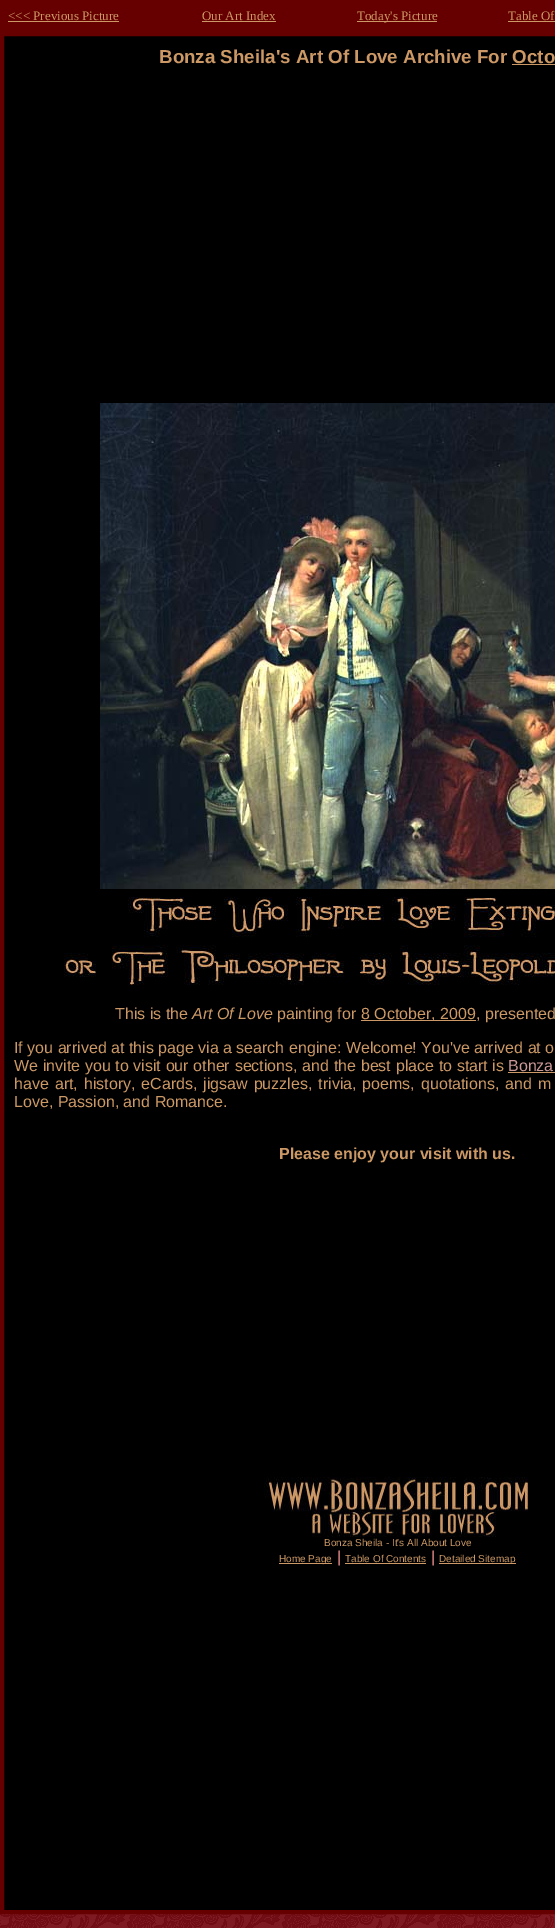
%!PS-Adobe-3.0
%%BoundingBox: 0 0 555 1928
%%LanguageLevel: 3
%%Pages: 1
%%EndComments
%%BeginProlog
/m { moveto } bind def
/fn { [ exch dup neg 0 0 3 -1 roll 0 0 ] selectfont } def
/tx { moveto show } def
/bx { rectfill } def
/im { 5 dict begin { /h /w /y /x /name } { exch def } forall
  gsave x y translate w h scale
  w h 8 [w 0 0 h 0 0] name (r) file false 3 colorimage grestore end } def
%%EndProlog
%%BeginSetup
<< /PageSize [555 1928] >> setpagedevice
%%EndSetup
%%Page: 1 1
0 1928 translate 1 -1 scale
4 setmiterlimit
1 setgray
0 0 555 1928 bx
(image0.raw) 0 1914 555 14 im
0.4 0 0 setrgbcolor
0 0 555 32 bx
/LiberationSerif-Regular 13 fn
0.8 0.6 0.4 setrgbcolor
(<<< Previous Picture) 8 20 tx
8 21 111 1 bx
(Our Art Index) 202 20 tx
202 21 74 1 bx
357 21 80 1 bx
(Today's Picture) 357 20 tx
(Table Of) 508 20 tx
508 21 47 1 bx
0 setgray
4 36 551 1874 bx
0.4 0 0 setrgbcolor
0.5 32.5 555 1881 rectstroke
1.5 33.5 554 1879 rectstroke
2.5 34.5 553 1877 rectstroke
3.5 35.5 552 1875 rectstroke
/LiberationSans-Bold 18.75 fn
0.8 0.6 0.4 setrgbcolor
(Bonza Sheila's Art Of Love Archive For Octo) 159 63 tx
512 64 43 1 bx
(image1.raw) 100 403 455 486 im
(image2.raw) 64 897 491 88 im
/LiberationSans-Regular 16 fn
(This is the) 115 1019 tx
/LiberationSans-Italic 16 fn
(Art Of Love) 192 1019 tx
/LiberationSans-Regular 16 fn
(painting for) 277 1019 tx
361 1020 115 1 bx
(8 October, 2009, presented) 361 1019 tx
(If you arrived at this page via a search engine: Welcome! You've arrived at o) 14 1053 tx
14 1071 m 0.25 0 32 (We invite you to visit our other sections, and the best place to start is) widthshow
0.8 0.6 0.6 setrgbcolor
508 1071 m 0.25 0 32 (Bonza) widthshow
0.8 0.6 0.4 setrgbcolor
508 1072 47 1 bx
14 1089 m 1.5 0 32 (have art, history, eCards, jigsaw puzzles, trivia, poems, quotations, and m) widthshow
(Love, Passion, and Romance.) 14 1107 tx
/LiberationSans-Bold 16 fn
(Please enjoy your visit with us.) 279 1159 tx
(image3.raw) 264 1477 264 60 im
/LiberationSans-Regular 10 fn
(Bonza Sheila - It's All About Love) 324 1546 tx
279 1563 53 1 bx
(Home Page) 279 1562 tx
/LiberationSans-Regular 16 fn
1 0.6 0.6 setrgbcolor
(|) 337 1562 tx
/LiberationSans-Regular 10 fn
0.8 0.6 0.4 setrgbcolor
(Table Of Contents) 345 1562 tx
345 1563 81 1 bx
/LiberationSans-Regular 16 fn
1 0.6 0.6 setrgbcolor
(|) 431 1562 tx
0.8 0.6 0.4 setrgbcolor
439 1563 77 1 bx
/LiberationSans-Regular 10 fn
(Detailed Sitemap) 439 1562 tx
showpage
%%EOF
